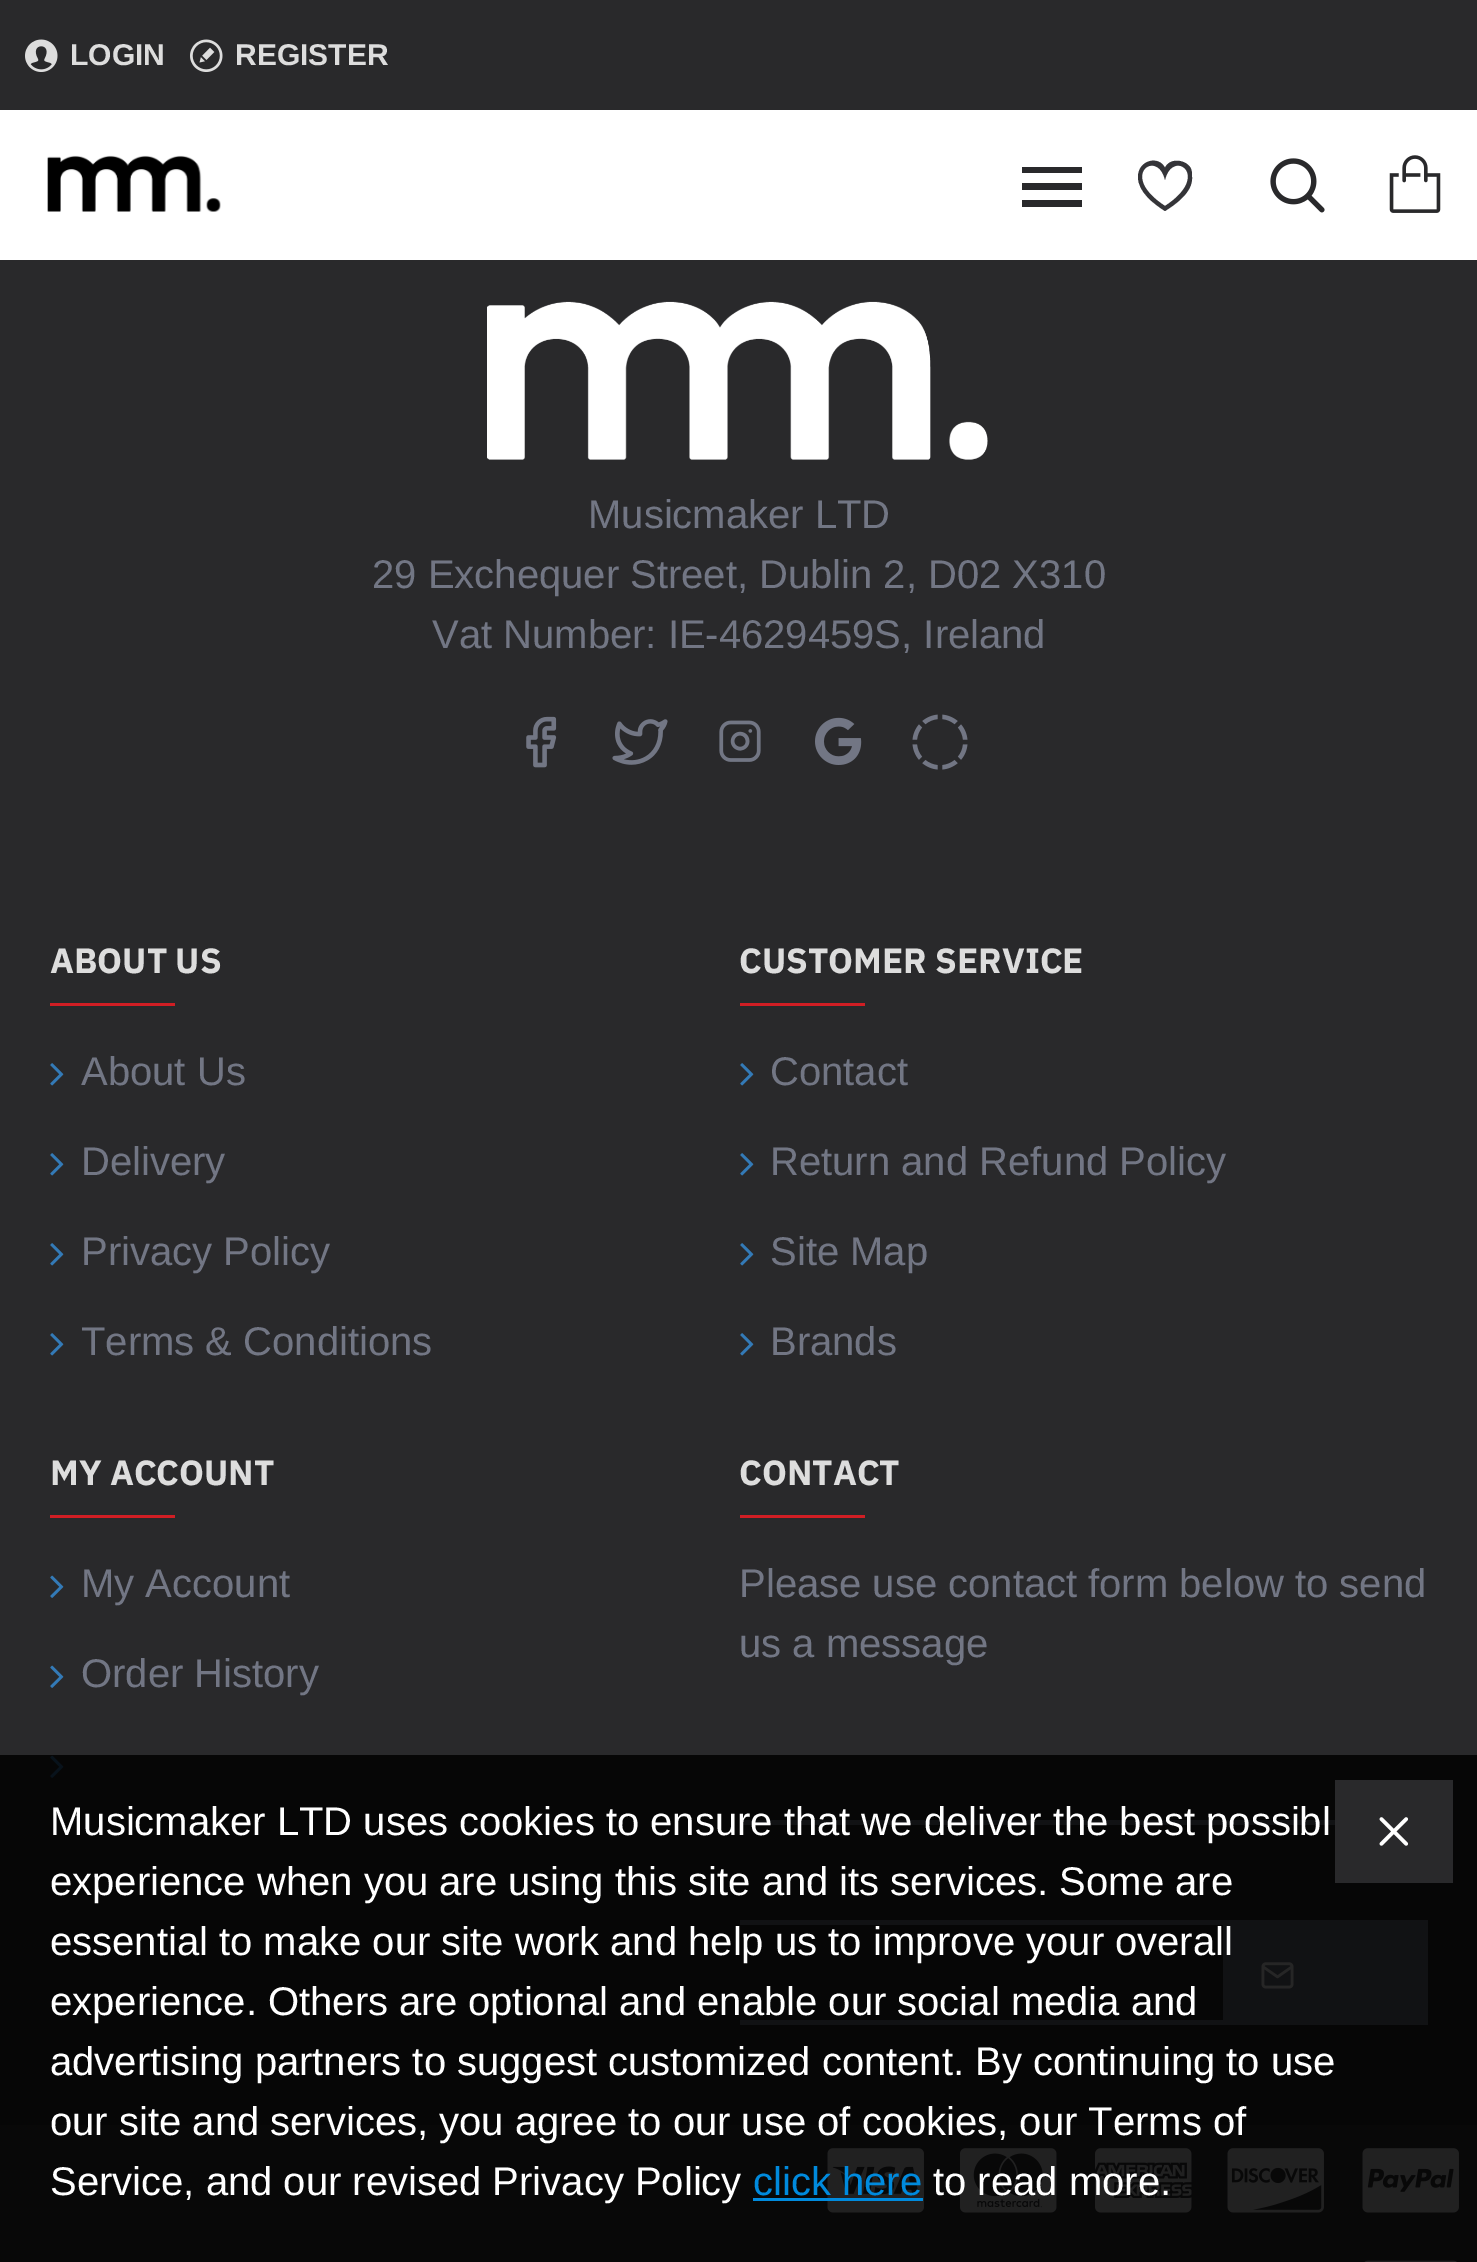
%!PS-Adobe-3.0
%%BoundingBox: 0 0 1477 2262
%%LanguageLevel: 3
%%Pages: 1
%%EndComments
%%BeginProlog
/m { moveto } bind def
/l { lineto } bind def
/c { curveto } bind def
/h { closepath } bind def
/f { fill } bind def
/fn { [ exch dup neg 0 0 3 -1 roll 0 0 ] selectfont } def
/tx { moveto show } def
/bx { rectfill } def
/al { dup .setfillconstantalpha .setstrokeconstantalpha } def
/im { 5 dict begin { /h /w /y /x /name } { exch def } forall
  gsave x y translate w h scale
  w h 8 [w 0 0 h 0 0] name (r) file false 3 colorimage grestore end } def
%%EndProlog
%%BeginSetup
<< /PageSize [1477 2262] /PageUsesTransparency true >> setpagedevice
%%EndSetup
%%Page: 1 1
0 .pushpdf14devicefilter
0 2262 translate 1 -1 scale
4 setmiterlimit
0.161 0.161 0.169 setrgbcolor
0 0 1477 2262 bx
(image0.raw) 25 39 33 33 im
/LiberationSans-Bold 30 fn
0.867 setgray
(LOGIN) 70 65 tx
(image1.raw) 190 39 33 33 im
(REGISTER) 235 65 tx
1 setgray
0 110 1477 150 bx
(image2.raw) 47 155 174 57 im
0.161 0.161 0.169 setrgbcolor
1022 167 m 1082 167 l 1082 173 l 1022 173 l h 1022 190 m 1022 183 l 1082 183 l 1082 190 l h 1022 207 m 1022 200 l 1082 200 l 1082 207 l h f
0.204 0.204 0.22 setrgbcolor
1165 180 m 1172 148 1213 175 1165 206 c 1117 175 1158 148 1165 180 c h 1138 177 m 1138 192 1154 204 1165 211 c 1176 204 1193 192 1192 177 c 1192 173 1192 170 1190 167 c 1184 159 1169 158 1165 168 c 1159 155 1138 160 1138 177 c h f
(image3.raw) 1270 158 55 55 im
(image4.raw) 1389 155 52 58 im
(image5.raw) 487 301 501 159 im
/LiberationSans-Regular 40 fn
0.447 0.463 0.518 setrgbcolor
(Musicmaker LTD) 588 528 tx
(29 Exchequer Street, Dublin 2, D02 X310) 372 588 tx
(Vat Number: IE-4629459S, Ireland) 432 648 tx
(image6.raw) 526 716 31 52 im
(image7.raw) 612 719 56 46 im
(image8.raw) 719 720 42 42 im
(image9.raw) 815 717 47 48 im
(image10.raw) 912 714 56 56 im
/IBMPlexSans-Bold 35 fn
0.867 setgray
(ABOUT US) 50 973 tx
0.816 0.118 0.141 setrgbcolor
50 1003 125 3 bx
(image11.raw) 50 1063 14 23 im
/LiberationSans-Regular 40 fn
0.447 0.463 0.518 setrgbcolor
(About Us) 81 1085 tx
(image11.raw) 50 1153 14 23 im
(Delivery) 81 1175 tx
(image11.raw) 50 1243 14 23 im
(Privacy Policy) 81 1265 tx
(image11.raw) 50 1333 14 23 im
(Terms & Conditions) 81 1355 tx
/IBMPlexSans-Bold 35 fn
0.867 setgray
(CUSTOMER SERVICE) 739 973 tx
0.816 0.118 0.141 setrgbcolor
740 1003 125 3 bx
(image11.raw) 740 1063 14 23 im
/LiberationSans-Regular 40 fn
0.447 0.463 0.518 setrgbcolor
(Contact) 770 1085 tx
(image11.raw) 740 1153 14 23 im
(Return and Refund Policy) 770 1175 tx
(image11.raw) 740 1243 14 23 im
(Site Map) 770 1265 tx
(image11.raw) 740 1333 14 23 im
(Brands) 770 1355 tx
/IBMPlexSans-Bold 35 fn
0.867 setgray
(MY ACCOUNT) 50 1485 tx
0.816 0.118 0.141 setrgbcolor
50 1515 125 3 bx
(image12.raw) 50 1575 14 23 im
/LiberationSans-Regular 40 fn
0.447 0.463 0.518 setrgbcolor
(My Account) 81 1597 tx
(image12.raw) 50 1665 14 23 im
(Order History) 81 1687 tx
(image12.raw) 50 1755 14 23 im
/IBMPlexSans-Bold 35 fn
0.867 setgray
(CONTACT) 739 1485 tx
0.816 0.118 0.141 setrgbcolor
740 1515 125 3 bx
/LiberationSans-Regular 40 fn
0.447 0.463 0.518 setrgbcolor
(Please use contact form below to send) 739 1597 tx
(us a message) 739 1657 tx
740 1820 595 5 bx
740 1920 688 5 bx
740 2020 483 5 bx
1223 1925 205 100 bx
(image13.raw) 1261 1962 33 27 im
0.204 0.204 0.22 setrgbcolor
0 2125 1477 137 bx
(image14.raw) 827 2148 97 65 im
(image15.raw) 960 2148 97 65 im
(image16.raw) 1095 2148 97 65 im
(image17.raw) 1227 2148 97 65 im
(image18.raw) 1362 2148 97 65 im
(image19.raw) 1364 2260 93 2 im
0.85 al
0 setgray
0 1755 1477 507 bx
1 al
1 setgray
(Musicmaker LTD uses cookies to ensure that we deliver the best possibl) 50 1835 tx
(experience when you are using this site and its services. Some are) 50 1895 tx
(essential to make our site work and help us to improve your overall) 50 1955 tx
(experience. Others are optional and enable our social media and) 50 2015 tx
(advertising partners to suggest customized content. By continuing to use) 50 2075 tx
(our site and services, you agree to our use of cookies, our Terms of) 50 2135 tx
(Service, and our revised Privacy Policy) 50 2195 tx
0 0.541 0.867 setrgbcolor
(click here) 753 2195 tx
753 2198 170 3 bx
1 setgray
(to read more.) 933 2195 tx
0.161 0.161 0.169 setrgbcolor
1335 1780 118 103 bx
(image20.raw) 1379 1817 30 29 im
.poppdf14devicefilter showpage
%%EOF
